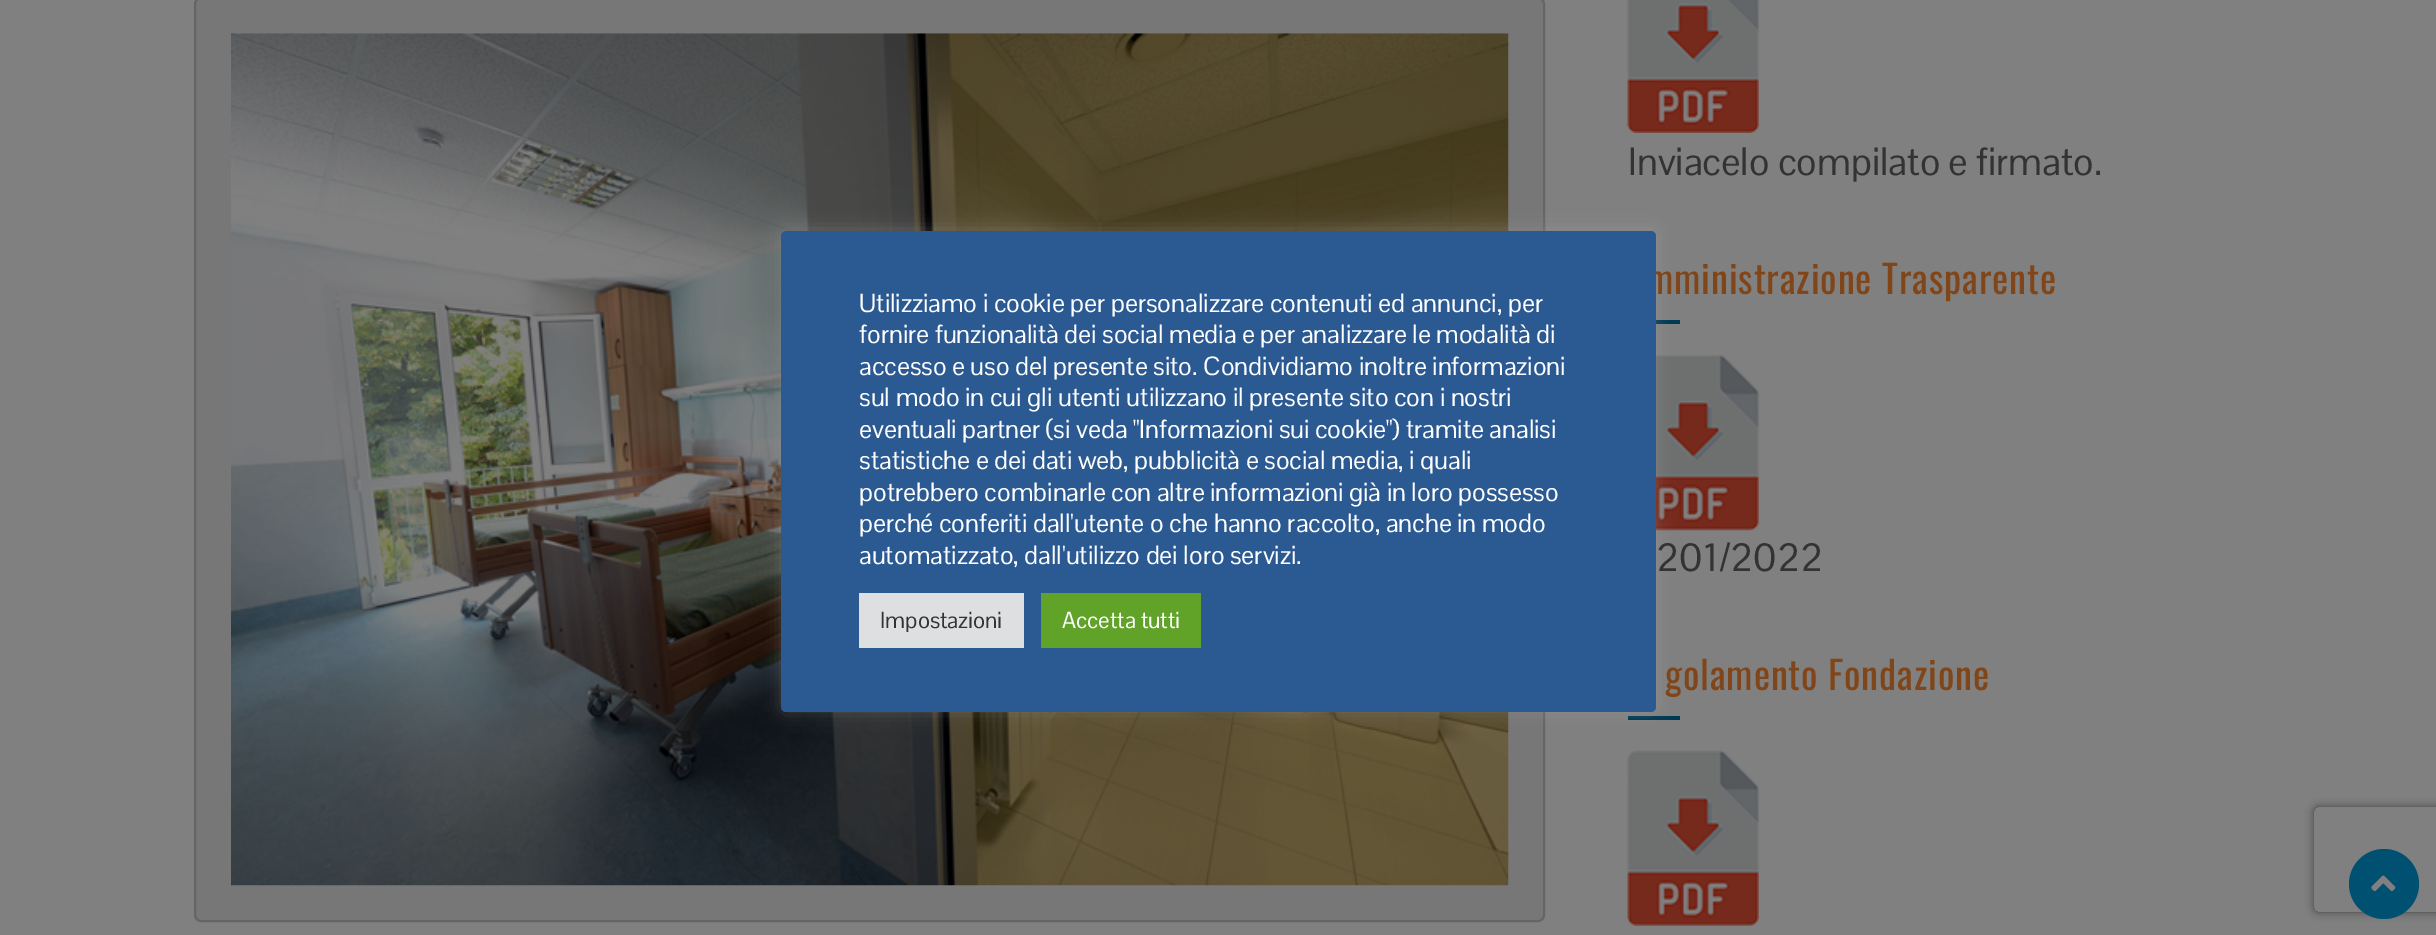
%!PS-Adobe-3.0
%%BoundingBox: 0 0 2436 935
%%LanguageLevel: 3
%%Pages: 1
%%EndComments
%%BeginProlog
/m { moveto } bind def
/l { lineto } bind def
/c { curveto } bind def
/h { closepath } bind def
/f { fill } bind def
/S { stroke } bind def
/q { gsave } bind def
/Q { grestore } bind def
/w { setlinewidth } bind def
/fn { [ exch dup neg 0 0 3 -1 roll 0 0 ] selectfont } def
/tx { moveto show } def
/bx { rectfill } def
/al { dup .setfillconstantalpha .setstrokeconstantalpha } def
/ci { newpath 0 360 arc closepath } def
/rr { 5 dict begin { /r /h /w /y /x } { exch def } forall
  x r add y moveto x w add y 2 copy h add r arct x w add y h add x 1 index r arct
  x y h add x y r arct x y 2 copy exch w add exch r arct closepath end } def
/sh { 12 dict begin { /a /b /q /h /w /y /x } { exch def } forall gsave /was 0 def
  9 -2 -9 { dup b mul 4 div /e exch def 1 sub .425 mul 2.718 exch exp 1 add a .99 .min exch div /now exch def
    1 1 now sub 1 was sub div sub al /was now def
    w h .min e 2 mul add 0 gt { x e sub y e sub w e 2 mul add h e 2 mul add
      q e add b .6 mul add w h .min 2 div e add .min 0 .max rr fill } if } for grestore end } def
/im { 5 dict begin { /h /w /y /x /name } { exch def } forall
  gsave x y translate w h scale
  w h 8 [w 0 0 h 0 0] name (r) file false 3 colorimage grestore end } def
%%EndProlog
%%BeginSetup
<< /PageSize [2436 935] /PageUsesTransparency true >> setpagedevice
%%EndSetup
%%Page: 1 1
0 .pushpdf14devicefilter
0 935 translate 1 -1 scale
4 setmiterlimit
0.502 setgray
0 0 2436 935 bx
0.467 setgray
195 -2 1349 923 6 rr q f Q
0.384 0.4 0.412 setrgbcolor
2 w
S
(image0.raw) 231 33 1278 853 im
0 0.224 0.325 setrgbcolor
1656 320 24 4 bx
(image2.raw) 1656 355 103 176 im
1628 716 52 4 bx
0.675 0.671 0.671 setrgbcolor
781 229 875 482 5 9 0.3 sh
/Oswald-Regular 38.5 fn
0.502 0.275 0.102 setrgbcolor
1647 294 m 0.9 0 (mministrazione Trasparente) ashow
0.169 0.353 0.573 setrgbcolor
781 231 875 481 5 rr f
/PontanoSans-Regular 25.7 fn
1 setgray
(Utilizziamo i cookie per personalizzare contenuti ed annunci, per) 859 312 tx
(fornire funzionalità dei social media e per analizzare le modalità di) 859 343 tx
(accesso e uso del presente sito. Condividiamo inoltre informazioni) 859 375 tx
(sul modo in cui gli utenti utilizzano il presente sito con i nostri) 859 406 tx
(eventuali partner \(si veda "Informazioni sui cookie"\) tramite analisi) 859 438 tx
(statistiche e dei dati web, pubblicità e social media, i quali) 859 469 tx
(potrebbero combinarle con altre informazioni già in loro possesso) 859 501 tx
(perché conferiti dall'utente o che hanno raccolto, anche in modo) 859 532 tx
(automatizzato, dall'utilizzo dei loro servizi.) 859 564 tx
0.871 0.875 0.878 setrgbcolor
859 593 165 55 bx
/PontanoSans-Regular 22.75 fn
0.2 setgray
(Impostazioni) 880 628 tx
0.38 0.635 0.161 setrgbcolor
1041 593 160 55 bx
1 setgray
(Accetta tutti) 1062 628 tx
(image1.raw) 1627 0 132 133 im
/PontanoSans-Regular 38.5 fn
0.2 setgray
(Inviacelo compilato e firmato.) 1628 175 tx
(201/2022) 1656 571 tx
/Oswald-Regular 38.5 fn
0.502 0.275 0.102 setrgbcolor
1665 690 m 0.9 0 (golamento Fondazione) ashow
(image3.raw) 1627 750 132 176 im
q
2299 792 m 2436 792 l 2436 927 l 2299 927 l h 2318 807 m 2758 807 l 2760 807 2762 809 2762 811 c 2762 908 l 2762 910 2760 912 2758 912 c 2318 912 l 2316 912 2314 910 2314 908 c 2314 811 l 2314 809 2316 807 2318 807 c h eoclip newpath
0.251 setgray
2314 807 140 105 4 4.5 1 sh
Q
0 0.314 0.447 setrgbcolor
2384 884 35 ci f
(image4.raw) 2371 875 25 16 im
.poppdf14devicefilter showpage
%%EOF
